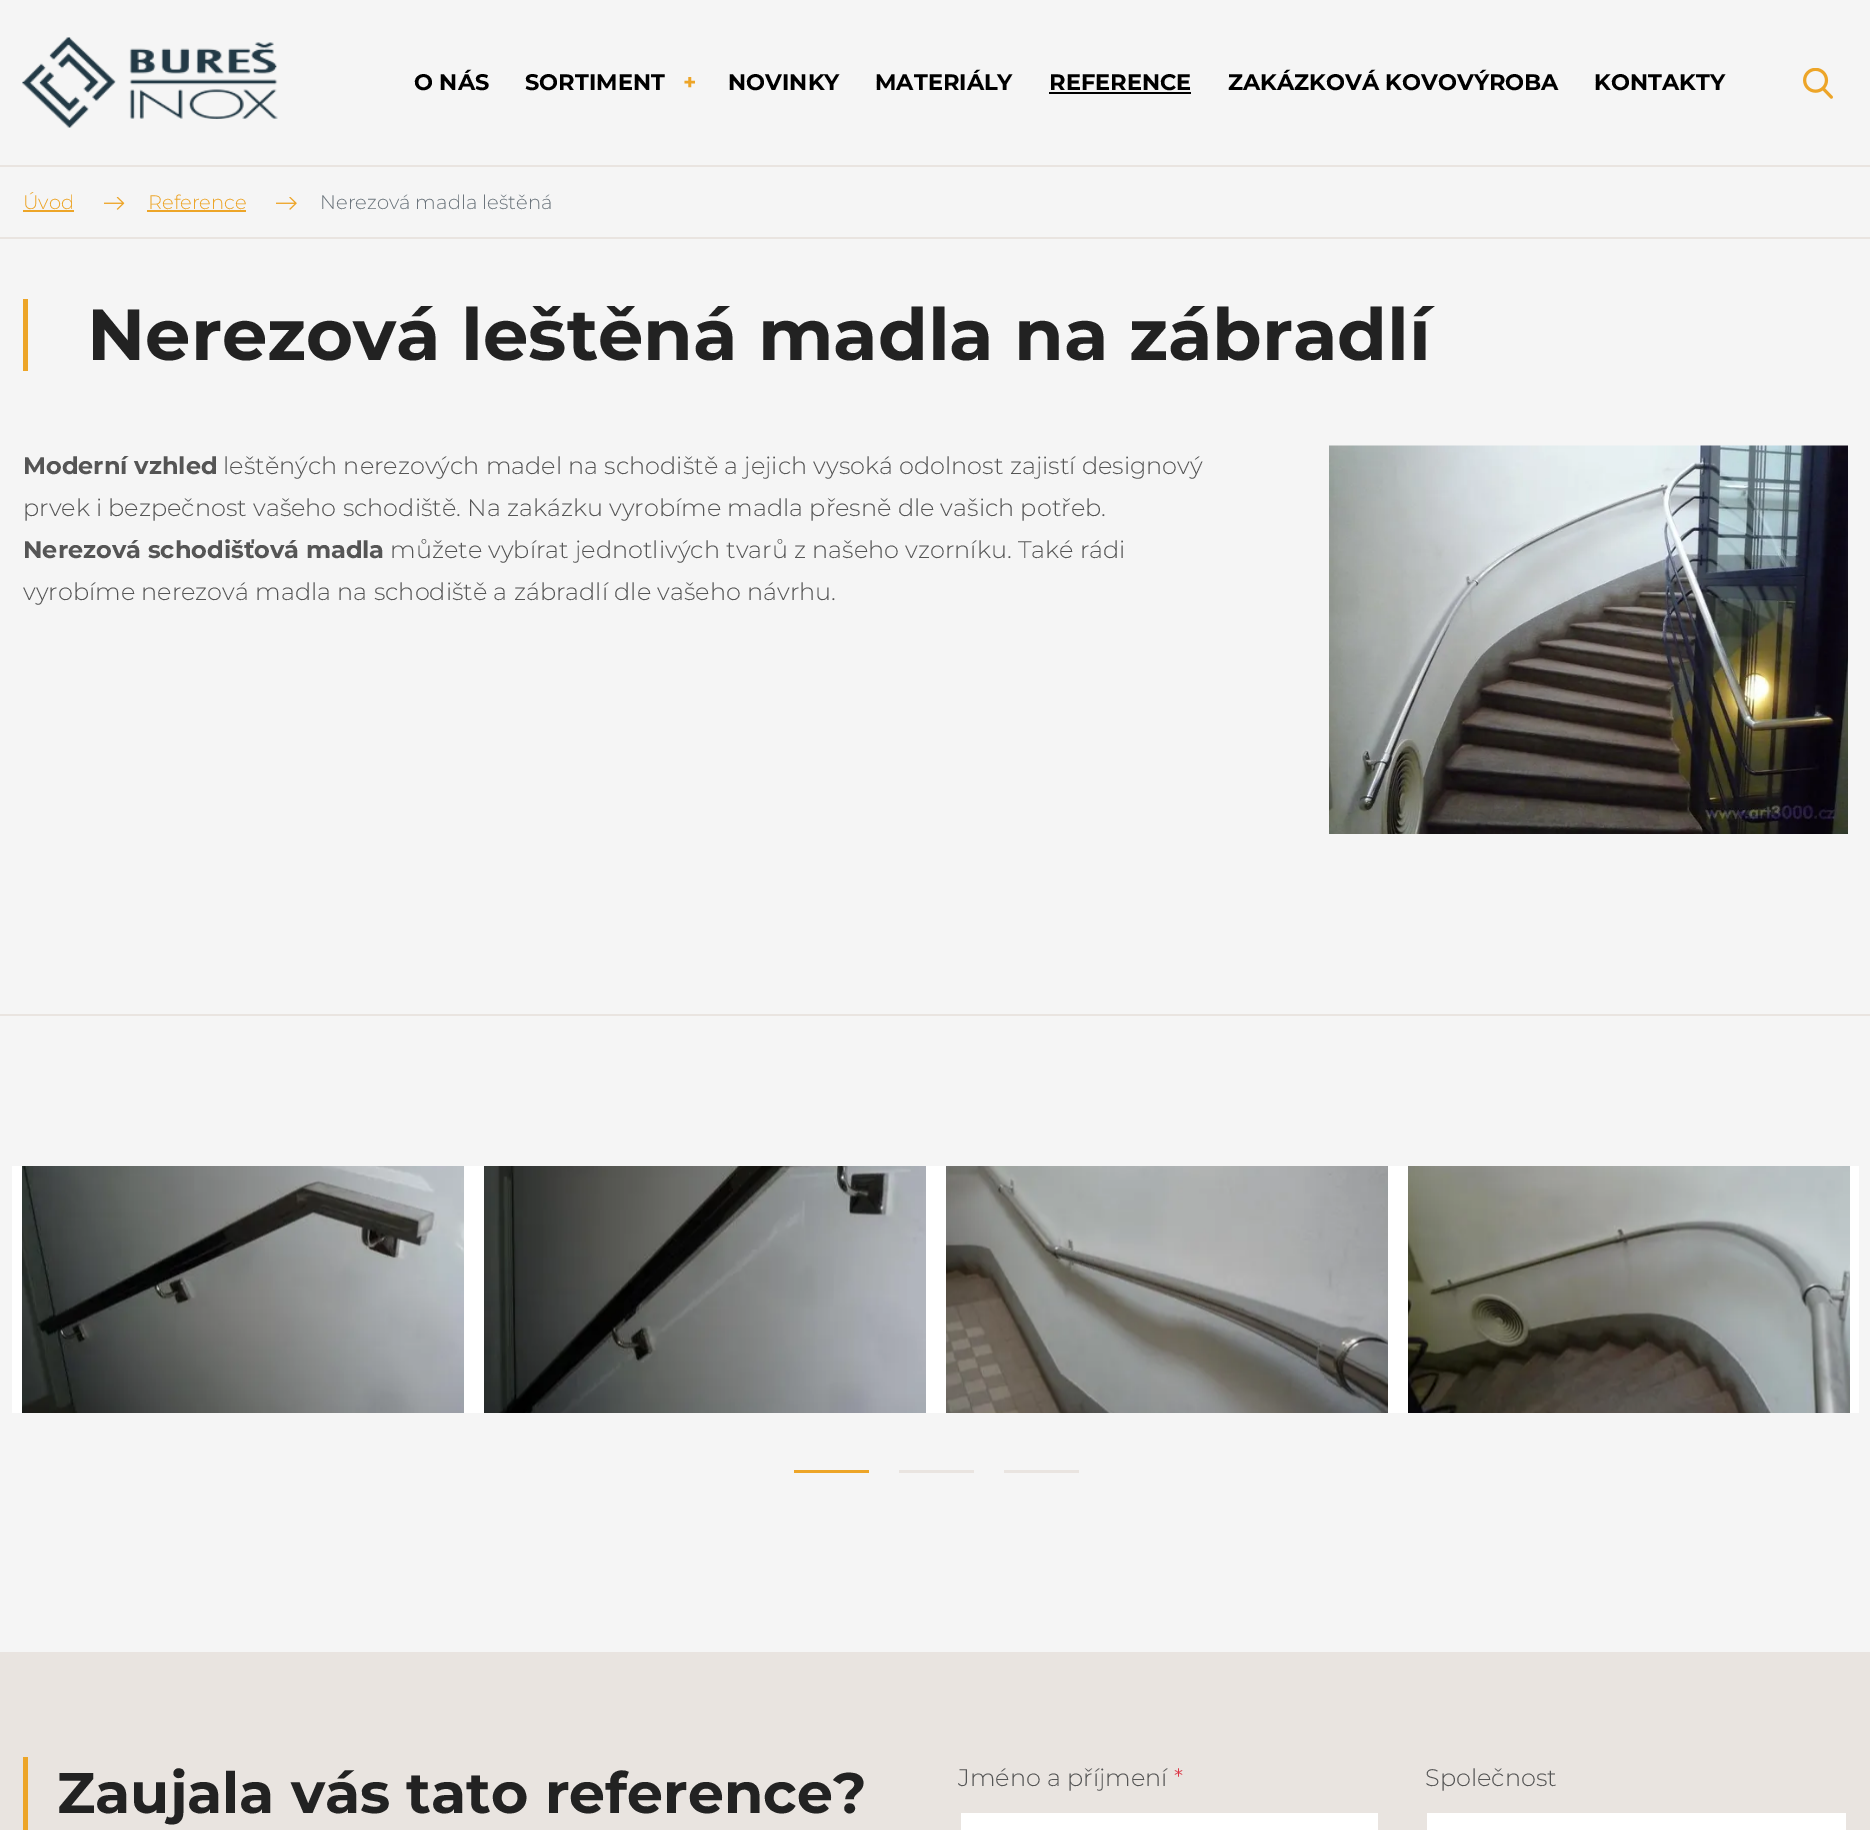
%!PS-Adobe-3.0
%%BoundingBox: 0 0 1870 1830
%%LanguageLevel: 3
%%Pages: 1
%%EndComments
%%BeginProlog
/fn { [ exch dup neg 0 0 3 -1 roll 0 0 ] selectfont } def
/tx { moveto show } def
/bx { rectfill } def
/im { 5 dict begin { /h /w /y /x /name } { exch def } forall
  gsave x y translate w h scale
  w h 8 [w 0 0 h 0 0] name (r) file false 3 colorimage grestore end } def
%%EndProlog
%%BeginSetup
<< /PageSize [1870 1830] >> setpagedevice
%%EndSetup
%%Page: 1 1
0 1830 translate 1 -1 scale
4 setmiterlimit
0.961 setgray
0 0 1870 1830 bx
(image0.raw) 22 37 256 91 im
/Montserrat-Bold 22.5 fn
0 setgray
(O NÁS) 414 90 tx
(SORTIMENT) 525 90 tx
0.929 0.647 0.157 setrgbcolor
(+) 683 90 tx
0 setgray
(NOVINKY) 728 90 tx
(MATERIÁLY) 875 90 tx
(REFERENCE) 1049 90 tx
1049 92 142 2 bx
(ZAKÁZKOVÁ KOVOVÝROBA) 1228 90 tx
(KONTAKTY) 1594 90 tx
(image1.raw) 1803 68 30 31 im
0.914 0.894 0.878 setrgbcolor
0 165 1870 2 bx
0 237 1870 2 bx
/Montserrat-Light 19.5 fn
0.929 0.647 0.157 setrgbcolor
(Úvod) 23 209 tx
23 210 51 2 bx
(image2.raw) 104 197 21 13 im
(Reference) 148 209 tx
147 210 99 2 bx
(image3.raw) 276 197 21 13 im
0.424 0.459 0.49 setrgbcolor
(Nerezová madla leštěná) 320 209 tx
0.929 0.647 0.157 setrgbcolor
23 299 5 72 bx
/Montserrat-Bold 72 fn
0.133 setgray
(Nerezová leštěná madla na zábradlí) 87 360 tx
/Montserrat-Bold 24 fn
0.333 setgray
(Moderní vzhled) 23 474 tx
/Montserrat-Light 24 fn
(leštěných nerezových madel na schodiště a jejich vysoká odolnost zajistí designový) 223 474 tx
(prvek i bezpečnost vašeho schodiště. Na zakázku vyrobíme madla přesně dle vašich potřeb.) 23 516 tx
/Montserrat-Bold 24 fn
(Nerezová schodišťová madla) 23 558 tx
/Montserrat-Light 24 fn
(můžete vybírat jednotlivých tvarů z našeho vzorníku. Také rádi) 390 558 tx
(vyrobíme nerezová madla na schodiště a zábradlí dle vašeho návrhu.) 23 600 tx
(image4.raw) 1329 445 519 389 im
0.914 0.894 0.878 setrgbcolor
0 1014 1870 2 bx
1 setgray
464 1166 20 247 bx
12 1166 10 247 bx
(image5.raw) 22 1166 442 247 im
926 1166 20 247 bx
(image6.raw) 484 1166 442 247 im
1388 1166 20 247 bx
(image7.raw) 946 1166 442 247 im
1850 1166 9 247 bx
(image8.raw) 1408 1166 442 247 im
0.929 0.647 0.157 setrgbcolor
794 1470 75 3 bx
0.914 0.894 0.878 setrgbcolor
899 1470 75 3 bx
1004 1470 75 3 bx
0 1652 1870 178 bx
0.929 0.647 0.157 setrgbcolor
23 1757 5 73 bx
/Montserrat-Bold 57 fn
0.133 setgray
(Zaujala vás tato reference?) 57 1813 tx
/Montserrat-Light 24 fn
0.333 setgray
(Jméno a příjmení) 958 1786 tx
0.863 0.208 0.271 setrgbcolor
(*) 1174 1786 tx
1 setgray
961 1813 417 17 bx
0.333 setgray
(Společnost) 1425 1786 tx
1 setgray
1427 1813 419 17 bx
showpage
%%EOF
